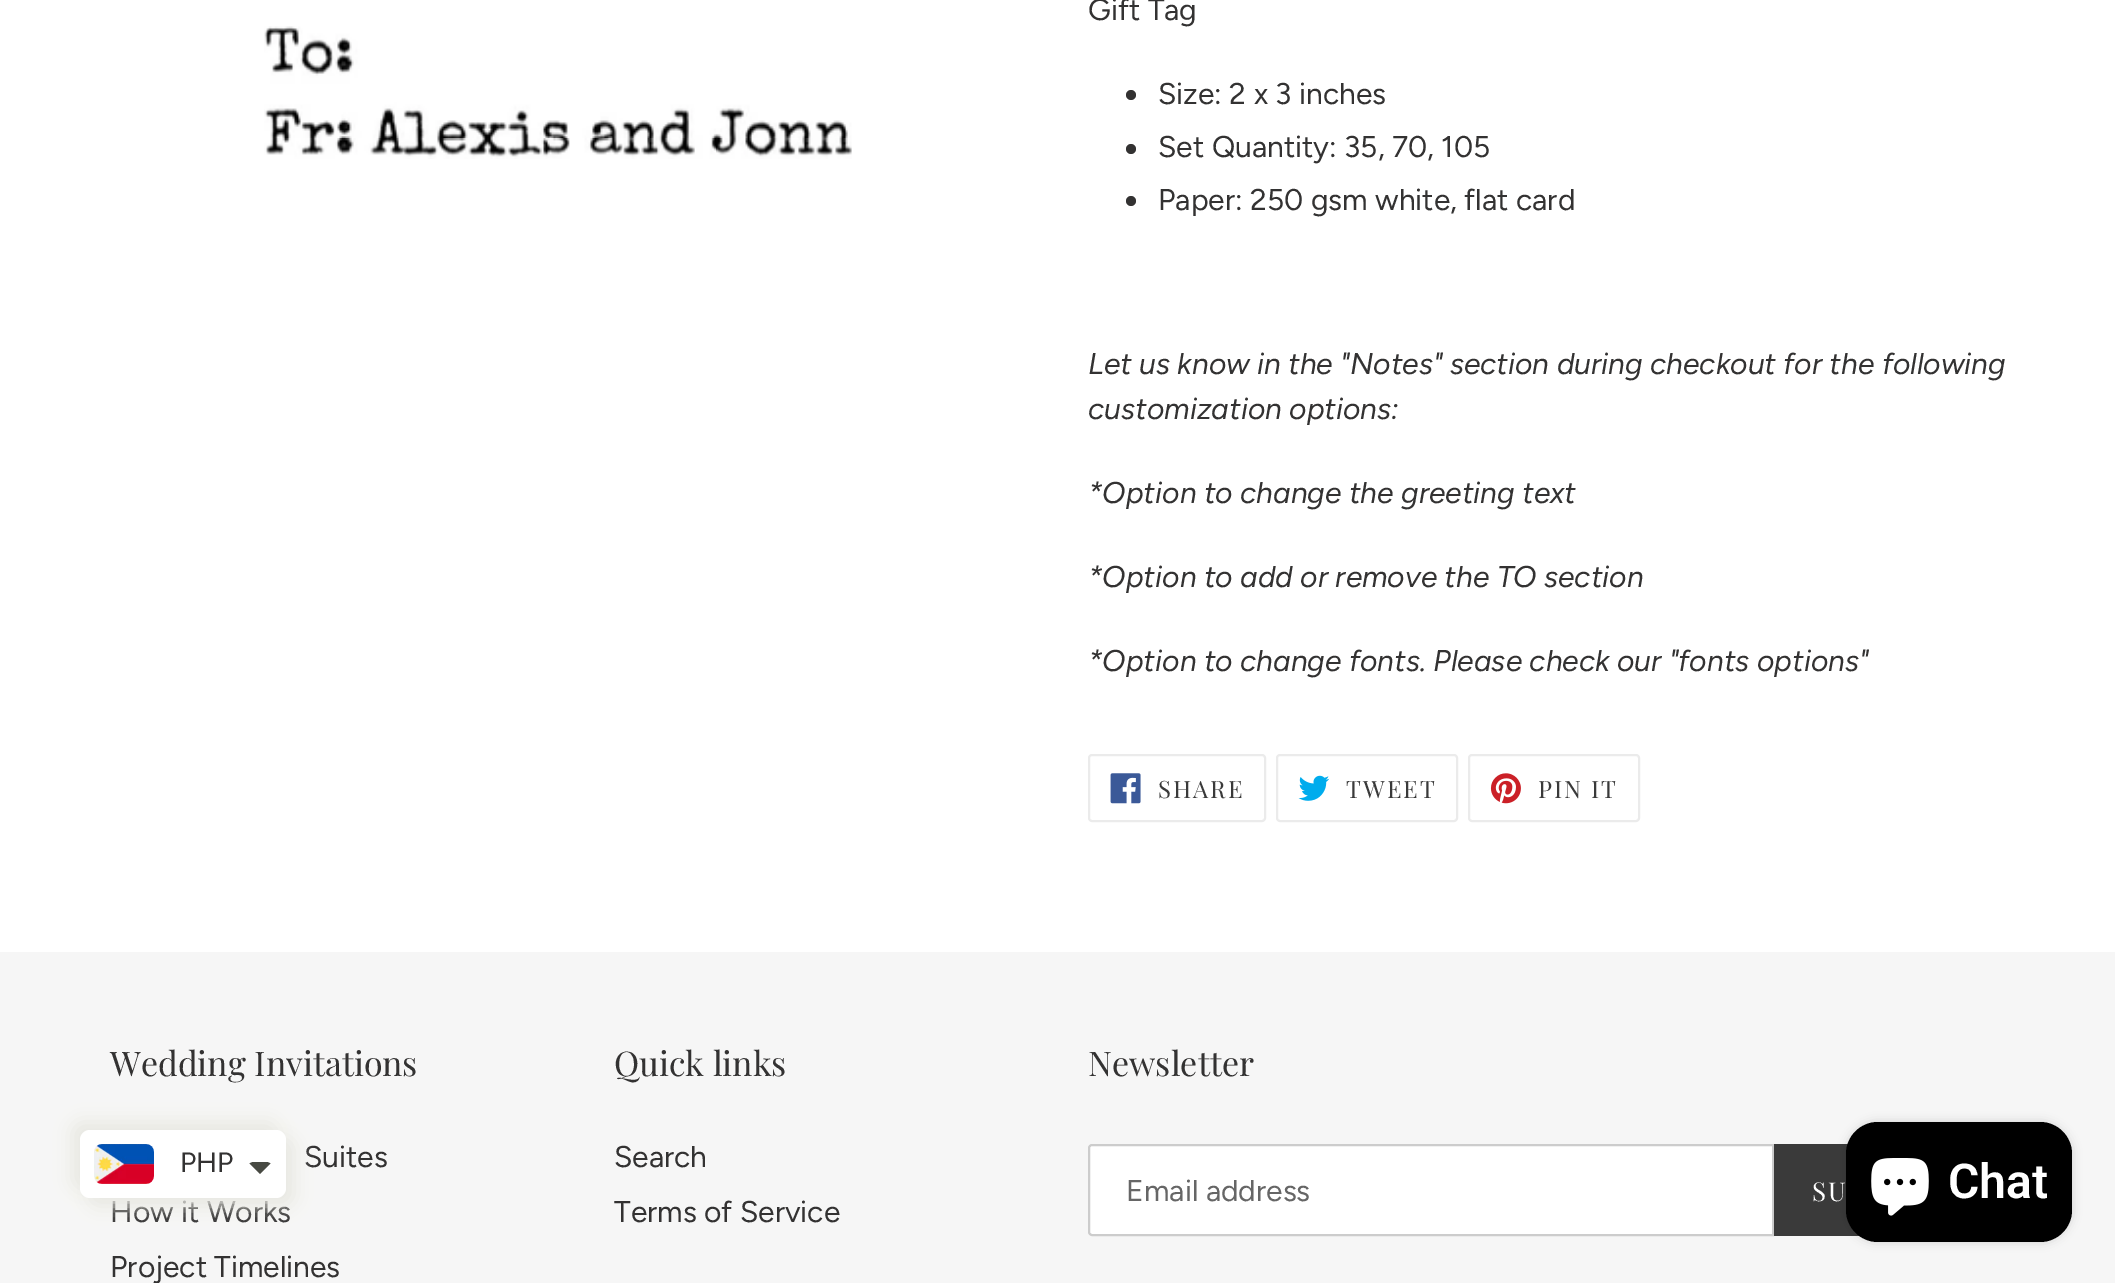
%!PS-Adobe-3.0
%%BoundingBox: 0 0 2115 1283
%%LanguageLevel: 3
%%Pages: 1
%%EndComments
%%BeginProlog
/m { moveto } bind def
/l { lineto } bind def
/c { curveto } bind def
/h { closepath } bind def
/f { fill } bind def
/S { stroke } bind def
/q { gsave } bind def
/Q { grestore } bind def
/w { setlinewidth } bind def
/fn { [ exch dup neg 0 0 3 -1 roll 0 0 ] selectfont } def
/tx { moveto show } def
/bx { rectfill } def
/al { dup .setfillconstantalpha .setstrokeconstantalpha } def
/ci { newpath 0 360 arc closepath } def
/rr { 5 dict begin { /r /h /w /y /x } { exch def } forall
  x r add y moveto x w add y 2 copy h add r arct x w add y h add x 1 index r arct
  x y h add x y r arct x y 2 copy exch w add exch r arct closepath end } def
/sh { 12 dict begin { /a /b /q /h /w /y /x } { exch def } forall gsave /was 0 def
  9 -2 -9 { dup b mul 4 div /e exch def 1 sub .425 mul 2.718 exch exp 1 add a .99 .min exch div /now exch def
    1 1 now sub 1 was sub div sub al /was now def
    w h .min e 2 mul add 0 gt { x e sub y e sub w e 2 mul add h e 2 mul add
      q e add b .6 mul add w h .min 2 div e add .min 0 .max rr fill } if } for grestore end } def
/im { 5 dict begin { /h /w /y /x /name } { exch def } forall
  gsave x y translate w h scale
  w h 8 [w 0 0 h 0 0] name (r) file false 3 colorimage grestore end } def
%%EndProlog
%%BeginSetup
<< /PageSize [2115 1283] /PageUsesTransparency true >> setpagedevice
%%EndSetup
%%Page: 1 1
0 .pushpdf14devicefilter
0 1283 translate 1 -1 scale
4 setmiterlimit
1 setgray
0 0 2115 1283 bx
(image0.raw) 264 26 588 133 im
/Figtree-Regular 30 fn
0.2 0.196 0.196 setrgbcolor
(Gift Tag) 1088 20 tx
1131 95 5 ci f
(Size: 2 x 3 inches) 1158 104 tx
1131 149 5 ci f
(Set Quantity: 35, 70, 105) 1158 157 tx
1131 201 5 ci f
(Paper: 250 gsm white, flat card) 1158 210 tx
/Figtree-Italic 30 fn
(Let us know in the "Notes" section during checkout for the following) 1088 374 tx
(customization options:) 1088 419 tx
(*Option to change the greeting text) 1088 503 tx
(*Option to add or remove the TO section) 1088 587 tx
(*Option to change fonts. Please check our "fonts options") 1088 671 tx
0.922 setgray
2 w
1089 755 176 66 3 rr S
(image1.raw) 1110 773 31 31 im
/PlayfairDisplay-Regular 24 fn
0.227 setgray
1158 798 m 2 0 (SHARE) ashow
0.922 setgray
1277 755 180 66 3 rr S
(image2.raw) 1298 775 32 26 im
0.227 setgray
1346 798 m 2 0 (TWEET) ashow
0.922 setgray
1469 755 170 66 3 rr S
(image3.raw) 1490 773 31 31 im
0.227 setgray
1538 798 m 2 0 (PIN IT) ashow
0.965 setgray
0 952 2115 331 bx
/PlayfairDisplay-Regular 34 fn
0.2 0.196 0.196 setrgbcolor
(Wedding Invitations) 110 1076 tx
/Figtree-Regular 30 fn
(Suites) 304 1167 tx
(How it Works) 110 1222 tx
(Project Timelines) 110 1277 tx
/PlayfairDisplay-Regular 34 fn
(Quick links) 614 1076 tx
/Figtree-Regular 30 fn
(Search) 614 1167 tx
(Terms of Service) 614 1222 tx
/PlayfairDisplay-Regular 34 fn
(Newsletter) 1088 1076 tx
1 setgray
1092 1145 m 1773 1145 l 1773 1235 l 1092 1235 l 1090.5 1235 1089 1233.5 1089 1232 c 1089 1148 l 1089 1146.5 1090.5 1145 1092 1145 c h q f Q
0.8 setgray
S
/Figtree-Regular 30 fn
0.4 setgray
(Email address) 1126 1201 tx
0.227 setgray
1774 1144 86 92 bx
/PlayfairDisplay-Regular 26 fn
1 setgray
1812 1201 m 2 0 (SU) ashow
0.91 0.91 0.886 setrgbcolor
72 1122 206 68 10 9 1 sh
88 1138 206 68 10 9 1 sh
1 setgray
80 1130 206 68 10 rr f
(image4.raw) 94 1144 60 40 im
/Figtree-Regular 28 fn
0.2 0.196 0.196 setrgbcolor
(PHP) 180 1172 tx
0.278 0.286 0.259 setrgbcolor
254 1162 m 252 1162 251 1162.5 249.5 1163.5 c 260 1174 l 270.5 1163.5 l 269 1162.5 268 1162 266 1162 c h f
0 setgray
1846 1122 226 120 32 5 0.15 sh
1846 1122 226 120 32 rr f
(image5.raw) 1871 1158 58 58 im
/Roboto-SemiBold 48 fn
1 setgray
(Chat) 1948 1198 tx
.poppdf14devicefilter showpage
%%EOF
